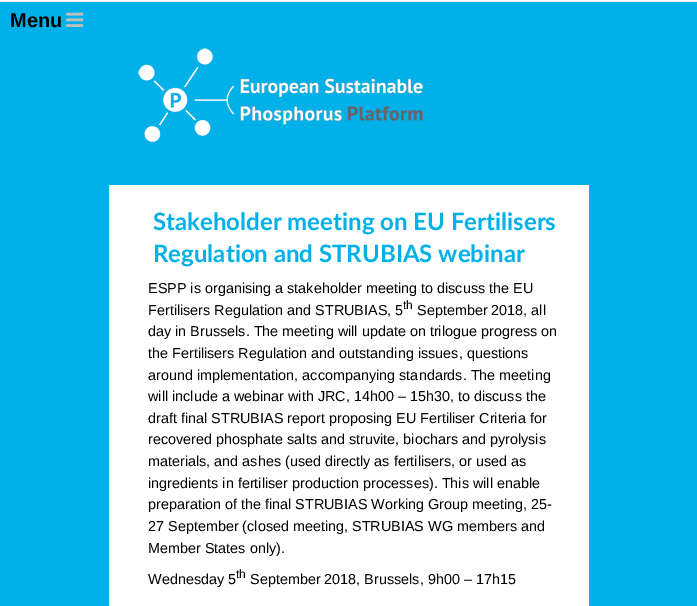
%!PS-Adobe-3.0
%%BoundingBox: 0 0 697 606
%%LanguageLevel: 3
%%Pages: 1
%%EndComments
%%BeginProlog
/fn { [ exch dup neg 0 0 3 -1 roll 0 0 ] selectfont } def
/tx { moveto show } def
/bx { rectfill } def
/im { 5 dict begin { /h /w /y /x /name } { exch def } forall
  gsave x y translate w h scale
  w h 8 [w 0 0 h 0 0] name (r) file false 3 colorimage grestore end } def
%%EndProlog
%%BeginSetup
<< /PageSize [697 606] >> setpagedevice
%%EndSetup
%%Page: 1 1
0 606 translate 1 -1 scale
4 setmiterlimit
0 0.69 0.914 setrgbcolor
0 0 697 606 bx
1 setgray
0 0 697 1 bx
0.922 setgray
0 1 697 1 bx
/LiberationSans-Bold 20 fn
0 setgray
(Menu) 10 27 tx
(image0.raw) 66 12 18 15 im
(image1.raw) 138 48 285 94 im
1 setgray
109 185 480 421 bx
/Lato-Bold 24 fn
0 0.69 0.914 setrgbcolor
(Stakeholder meeting on EU Fertilisers) 153 230 tx
(Regulation and STRUBIAS webinar) 153 262 tx
/LiberationSans-Regular 14.4 fn
0 setgray
(ESPP is organising a stakeholder meeting to discuss the EU) 148 293 tx
(Fertilisers Regulation and STRUBIAS, 5) 148 315 tx
/LiberationSans-Regular 12 fn
(th) 403 309 tx
/LiberationSans-Regular 14.4 fn
(September 2018, all) 417 315 tx
(day in Brussels. The meeting will update on trilogue progress on) 148 336 tx
(the Fertilisers Regulation and outstanding issues, questions) 148 358 tx
(around implementation, accompanying standards. The meeting) 148 380 tx
(will include a webinar with JRC, 14h00 – 15h30, to discuss the) 148 401 tx
(draft final STRUBIAS report proposing EU Fertiliser Criteria for) 148 423 tx
(recovered phosphate salts and struvite, biochars and pyrolysis) 148 444 tx
(materials, and ashes \(used directly as fertilisers, or used as) 148 466 tx
(ingredients in fertiliser production processes\). This will enable) 148 488 tx
(preparation of the final STRUBIAS Working Group meeting, 25-) 148 509 tx
(27 September \(closed meeting, STRUBIAS WG members and) 148 531 tx
(Member States only\).) 148 553 tx
(Wednesday 5) 148 584 tx
/LiberationSans-Regular 12 fn
(th) 236 578 tx
/LiberationSans-Regular 14.4 fn
(September 2018, Brussels, 9h00 – 17h15) 250 584 tx
showpage
%%EOF
